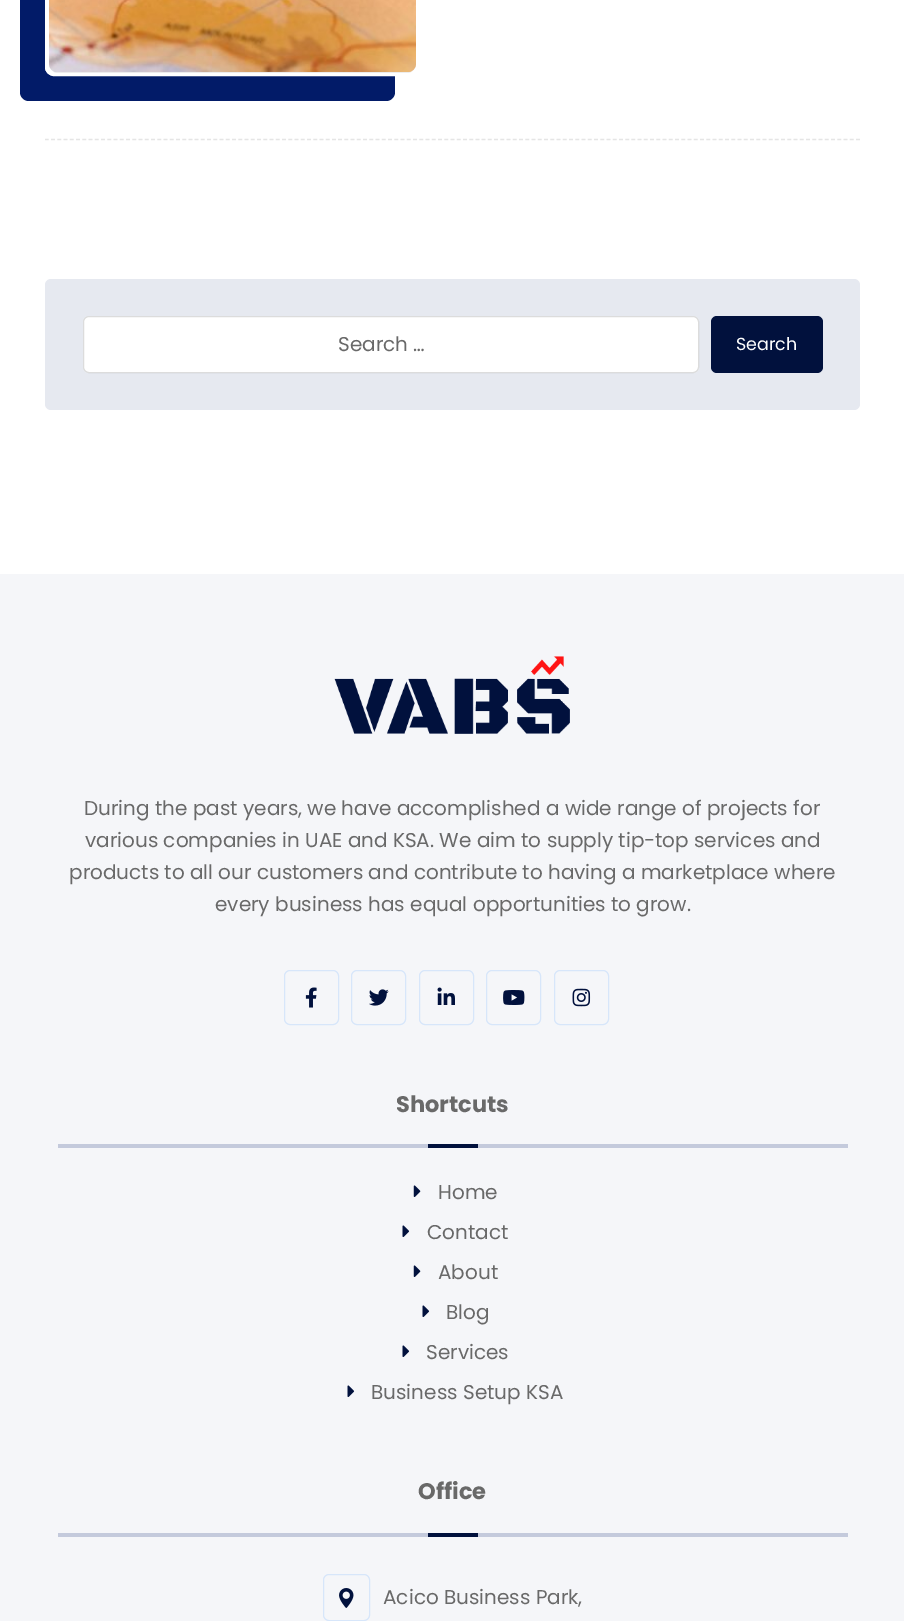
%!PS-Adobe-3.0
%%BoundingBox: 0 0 904 1621
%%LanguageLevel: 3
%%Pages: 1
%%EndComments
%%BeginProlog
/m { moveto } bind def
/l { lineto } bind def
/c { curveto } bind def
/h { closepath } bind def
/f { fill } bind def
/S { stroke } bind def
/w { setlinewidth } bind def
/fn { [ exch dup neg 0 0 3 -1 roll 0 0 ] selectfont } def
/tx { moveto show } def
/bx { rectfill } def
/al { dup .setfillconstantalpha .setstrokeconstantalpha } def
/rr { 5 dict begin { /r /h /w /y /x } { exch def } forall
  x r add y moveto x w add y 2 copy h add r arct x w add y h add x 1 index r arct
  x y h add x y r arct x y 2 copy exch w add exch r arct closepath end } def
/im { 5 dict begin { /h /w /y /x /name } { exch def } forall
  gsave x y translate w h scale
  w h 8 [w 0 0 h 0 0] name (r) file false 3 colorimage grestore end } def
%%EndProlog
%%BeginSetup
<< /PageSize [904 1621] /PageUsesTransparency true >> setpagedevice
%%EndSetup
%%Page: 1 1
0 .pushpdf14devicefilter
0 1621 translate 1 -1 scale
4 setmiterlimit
1 setgray
0 0 904 1621 bx
0.898 setgray
1.2 w
[3.75 2.49] 0 setdash
45 139.5 m 860 139.5 l S
0.008 0.106 0.408 setrgbcolor
29 -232 m 24 -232 20 -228 20 -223 c 20 92 l 20 97 24 101 29 101 c 386 101 l 391 101 395 97 395 92 c 395 76 l 54 76 l 49 76 45 72 45 68 c 45 -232 l h f
1 setgray
4 w
[] 0 setdash
47 -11 371 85 7 rr S
0.929 setgray
49 -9 367 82 9 rr f
(image0.raw) 49 0 367 72 im
0.902 0.914 0.941 setrgbcolor
45 279 815 131 6 rr f
1 setgray
83 316 616 57 6 rr f
0.4 al
0.655 setgray
1 w
83.5 316.5 615 56 5.5 rr S
/Poppins-Regular 20 fn
1 al
0.412 setgray
(Search …) 338 351 tx
0.004 0.067 0.239 setrgbcolor
711 316 112 57 6 rr f
/Poppins-Regular 17.5 fn
1 setgray
(Search) 736 350 tx
0.961 0.965 0.976 setrgbcolor
0 574 904 1047 bx
(image1.raw) 334 656 236 78 im
/Poppins-Regular 20 fn
0.412 setgray
(During the past years, we have accomplished a wide range of projects for) 84 815 tx
(various companies in UAE and KSA. We aim to supply tip-top services and) 85 847 tx
(products to all our customers and contribute to having a marketplace where) 69 879 tx
(every business has equal opportunities to grow.) 215 911 tx
0.843 0.902 0.98 setrgbcolor
284.5 970.5 54 54 5.5 rr S
(image2.raw) 305 987 12 21 im
351.5 970.5 54 54 5.5 rr S
(image3.raw) 369 989 20 17 im
419.5 970.5 54 54 5.5 rr S
(image4.raw) 437 987 18 18 im
486.5 970.5 54 54 5.5 rr S
(image5.raw) 503 990 22 15 im
554.5 970.5 54 54 5.5 rr S
(image6.raw) 572 988 19 19 im
0.769 0.792 0.863 setrgbcolor
58 1144 790 4 bx
/Poppins-Bold 22.5 fn
0.412 setgray
(Shortcuts) 396 1112 tx
0.004 0.067 0.239 setrgbcolor
428 1144 50 4 bx
(image7.raw) 413 1185 8 12 im
/Poppins-Regular 20 fn
0.412 setgray
(Home) 438 1199 tx
(image8.raw) 402 1225 8 12 im
(Contact) 427 1239 tx
(image7.raw) 413 1265 8 12 im
(About) 438 1279 tx
(image8.raw) 422 1305 8 12 im
(Blog) 446 1319 tx
(image8.raw) 402 1345 8 12 im
(Services) 426 1359 tx
(image8.raw) 347 1385 8 12 im
(Business Setup KSA) 371 1399 tx
0.769 0.792 0.863 setrgbcolor
58 1533 790 4 bx
/Poppins-Bold 22.5 fn
0.412 setgray
(Office) 418 1499 tx
0.004 0.067 0.239 setrgbcolor
428 1533 50 4 bx
0.843 0.902 0.98 setrgbcolor
323.5 1574.5 46 46 5.5 rr S
(image9.raw) 339 1588 15 20 im
/Poppins-Regular 20 fn
0.412 setgray
(Acico Business Park,) 383 1604 tx
.poppdf14devicefilter showpage
%%EOF
